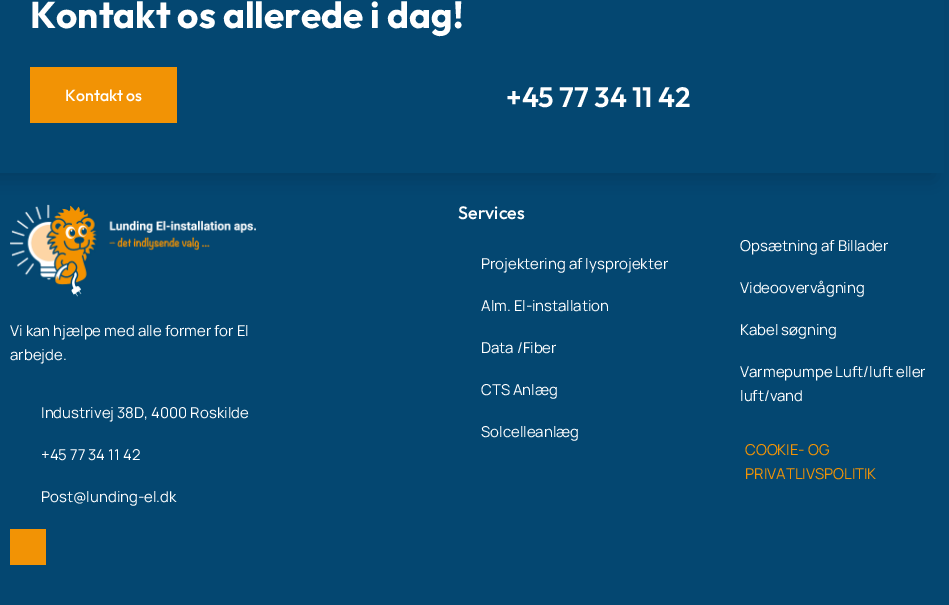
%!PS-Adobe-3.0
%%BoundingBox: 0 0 949 605
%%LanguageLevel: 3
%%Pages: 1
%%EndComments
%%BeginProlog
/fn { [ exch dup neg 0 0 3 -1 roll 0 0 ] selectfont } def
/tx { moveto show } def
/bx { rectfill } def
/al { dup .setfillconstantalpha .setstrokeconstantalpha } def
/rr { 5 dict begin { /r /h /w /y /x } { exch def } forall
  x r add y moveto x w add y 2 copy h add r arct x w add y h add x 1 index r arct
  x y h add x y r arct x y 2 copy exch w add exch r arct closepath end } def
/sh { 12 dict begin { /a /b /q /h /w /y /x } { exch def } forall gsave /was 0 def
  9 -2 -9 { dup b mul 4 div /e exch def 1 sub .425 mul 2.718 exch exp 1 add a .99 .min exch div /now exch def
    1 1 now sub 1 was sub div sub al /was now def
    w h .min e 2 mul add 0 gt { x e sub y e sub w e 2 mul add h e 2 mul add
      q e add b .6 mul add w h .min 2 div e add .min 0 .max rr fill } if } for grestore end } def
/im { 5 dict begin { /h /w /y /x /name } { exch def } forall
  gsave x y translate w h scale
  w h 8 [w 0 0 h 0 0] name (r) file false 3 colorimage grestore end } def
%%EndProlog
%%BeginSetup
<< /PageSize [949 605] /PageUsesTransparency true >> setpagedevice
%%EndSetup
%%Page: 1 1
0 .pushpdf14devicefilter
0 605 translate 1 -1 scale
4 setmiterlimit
0.016 0.278 0.443 setrgbcolor
0 0 949 605 bx
(image0.raw) 10 204 246 93 im
0 setgray
-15 -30 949 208 0 10 0.15 sh
0.016 0.278 0.443 setrgbcolor
0 0 944 173 bx
/Outfit-Bold 37 fn
1 setgray
(Kontakt os allerede i dag!) 30 28 tx
0.949 0.576 0.02 setrgbcolor
30 67 147 56 bx
/Outfit-Medium 16 fn
1 setgray
(Kontakt os) 65 101 tx
/Outfit-SemiBold 28 fn
(+45 77 34 11 42) 506 107 tx
/Manrope-Regular 15 fn
(Vi kan hjælpe med alle former for El) 10 336 tx
(arbejde.) 10 360 tx
(Industrivej 38D, 4000 Roskilde) 41 418 tx
(+45 77 34 11 42) 41 460 tx
(Post@lunding-el.dk) 41 502 tx
0.949 0.576 0.02 setrgbcolor
10 529 36 36 bx
/Outfit-Medium 18 fn
1 setgray
(Services) 458 219 tx
/Manrope-Regular 15 fn
(Projektering af lysprojekter) 481 269 tx
(Alm. El-installation) 481 311 tx
(Data /Fiber) 481 353 tx
(CTS Anlæg) 481 395 tx
(Solcelleanlæg) 481 437 tx
(Opsætning af Billader) 740 251 tx
(Videoovervågning) 740 293 tx
(Kabel søgning) 740 335 tx
(Varmepumpe Luft/luft eller) 740 377 tx
(luft/vand) 740 401 tx
0.949 0.576 0.02 setrgbcolor
(COOKIE- OG) 745 455 tx
(PRIVATLIVSPOLITIK) 745 479 tx
.poppdf14devicefilter showpage
%%EOF
